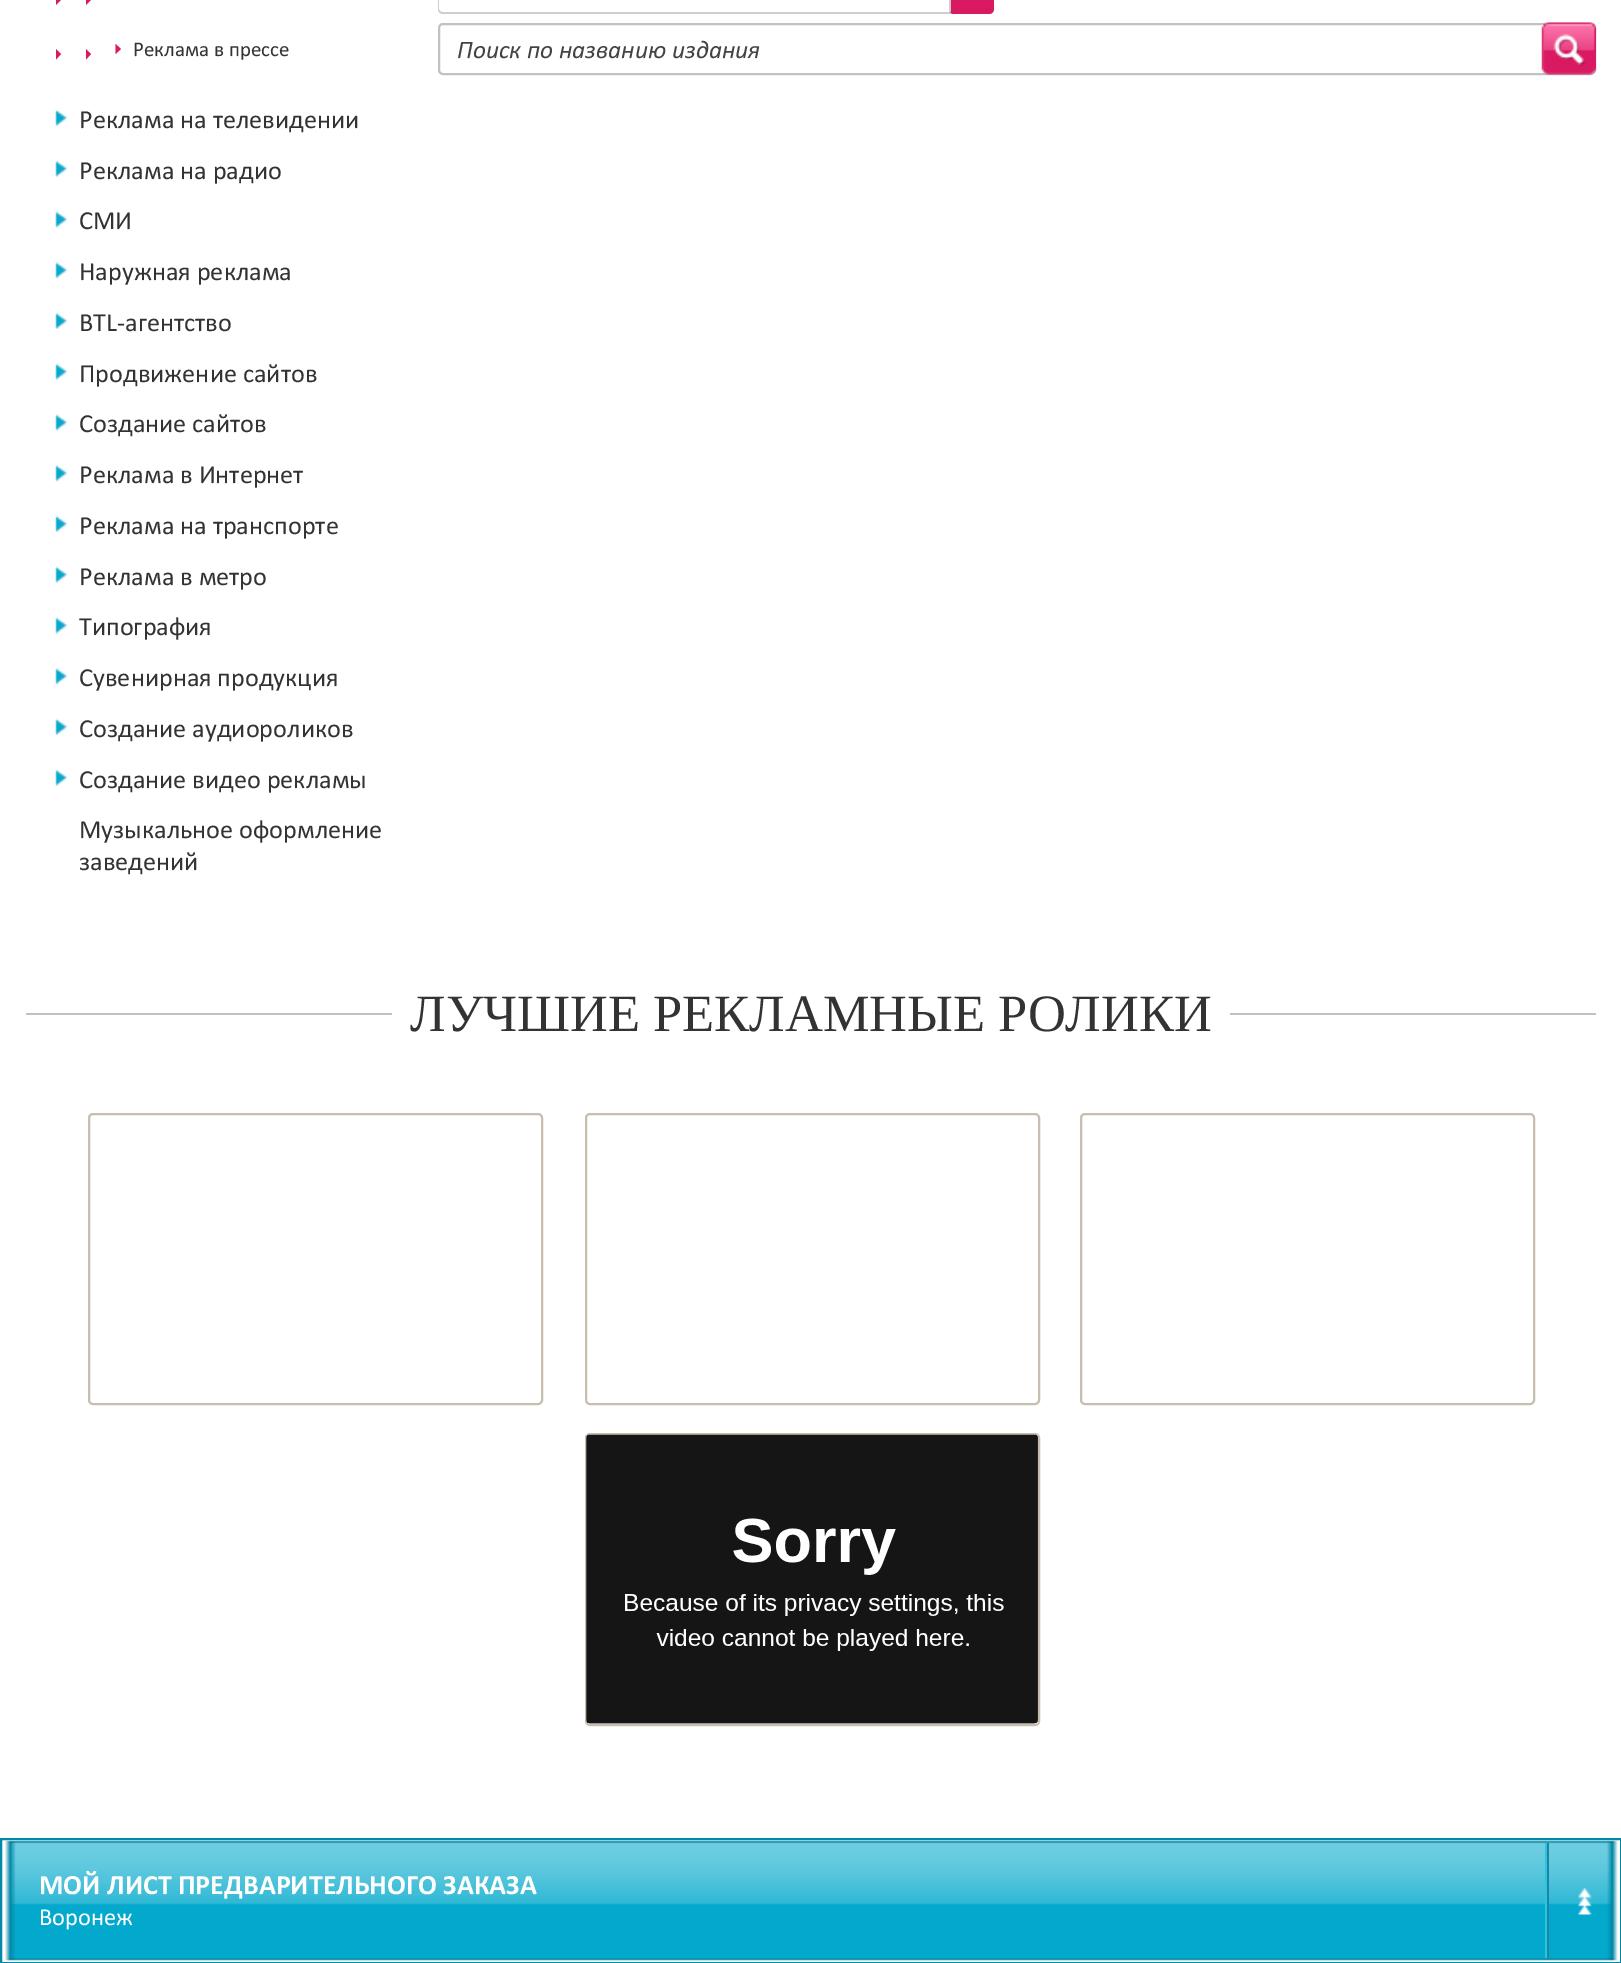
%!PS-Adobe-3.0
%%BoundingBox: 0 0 1621 1963
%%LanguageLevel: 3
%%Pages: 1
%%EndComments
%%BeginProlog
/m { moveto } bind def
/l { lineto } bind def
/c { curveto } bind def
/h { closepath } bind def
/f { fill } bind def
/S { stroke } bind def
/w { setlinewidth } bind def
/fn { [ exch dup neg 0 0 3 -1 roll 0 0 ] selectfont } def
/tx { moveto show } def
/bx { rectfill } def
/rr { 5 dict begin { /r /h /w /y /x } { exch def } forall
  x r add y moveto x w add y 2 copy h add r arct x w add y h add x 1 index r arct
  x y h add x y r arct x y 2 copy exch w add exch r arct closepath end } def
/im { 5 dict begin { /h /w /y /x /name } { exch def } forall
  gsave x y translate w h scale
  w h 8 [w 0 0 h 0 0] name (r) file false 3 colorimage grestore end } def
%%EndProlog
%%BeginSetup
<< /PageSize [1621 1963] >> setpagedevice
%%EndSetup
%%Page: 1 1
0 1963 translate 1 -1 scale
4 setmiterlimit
1 setgray
0 0 1621 1963 bx
0.851 0.102 0.388 setrgbcolor
86 5 m 86 -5 l 91 0 l h 56 5 m 56 -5 l 61 0 l h 86 59.5 m 86 49 l 91 54 l h f
56 59.5 m 56 49 l 61 54 l h f
115.5 54 m 115.5 44 l 121 49 l h f
/Calibri-Regular 21 fn
0.2 setgray
(Реклама в прессе) 133 56 tx
(image0.raw) 55 109 12 17 im
/Calibri-Regular 26.25 fn
(Реклама на телевидении) 79 128 tx
(image1.raw) 55 160 12 17 im
(Реклама на радио) 79 179 tx
(image2.raw) 55 211 12 17 im
(СМИ) 79 229 tx
(image3.raw) 55 262 12 17 im
(Наружная реклама) 79 280 tx
(image0.raw) 55 312 12 17 im
(BTL-агентство) 79 331 tx
(image1.raw) 55 363 12 17 im
(Продвижение сайтов) 79 382 tx
(image2.raw) 55 414 12 17 im
(Создание сайтов) 79 432 tx
(image3.raw) 55 465 12 17 im
(Реклама в Интернет) 79 483 tx
(image0.raw) 55 515 12 17 im
(Реклама на транспорте) 79 534 tx
(image1.raw) 55 566 12 17 im
(Реклама в метро) 79 585 tx
(image2.raw) 55 617 12 17 im
(Типография) 79 635 tx
(image3.raw) 55 668 12 17 im
(Сувенирная продукция) 79 686 tx
(image0.raw) 55 718 12 17 im
(Создание аудиороликов) 79 737 tx
(image1.raw) 55 769 12 17 im
(Создание видео рекламы) 79 788 tx
(Музыкальное оформление) 79 838 tx
(заведений) 79 870 tx
0.808 setgray
443 -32 m 989 -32 l 992 -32 994 -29 994 -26 c 994 9 l 994 12 992 14 989 14 c 443 14 l 440 14 438 12 438 9 c 438 -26 l 438 -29 440 -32 443 -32 c h 443 -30 m 989 -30 l 992 -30 994 -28 994 -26 c 994 9 l 994 11 992 12 989 12 c 443 12 l 441 12 439 11 439 9 c 439 -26 l 439 -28 441 -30 443 -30 c h eofill
0.851 0.102 0.388 setrgbcolor
949 -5 45 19 5 rr f
0.8 setgray
949 0 2 12 bx
0.761 setgray
2 w
439 24 1156 50 4 rr S
/Calibri-Italic 25.4 fn
0.263 setgray
(Поиск по названию издания) 457 58 tx
(image4.raw) 1541 22 55 53 im
0.757 setgray
26 1013 1570 2 bx
1 setgray
392 1013 838 2 bx
/LiberationSerif-Regular 52.5 fn
0.2 setgray
(ЛУЧШИЕ РЕКЛАМНЫЕ РОЛИКИ) 410 1031 tx
0.78 0.745 0.686 setrgbcolor
89 1114 453 290 4 rr S
586 1114 453 290 4 rr S
1081 1114 453 290 4 rr S
586 1434 453 291 4 rr S
(image5.raw) 586 1434 452 290 im
0.941 setgray
2 1840 1618 122 bx
(image6.raw) 2 1840 1618 122 im
0.008 0.537 0.651 setrgbcolor
1 1839 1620 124 rectstroke
/Calibri-Bold 28 fn
1 setgray
(МОЙ ЛИСТ ПРЕДВАРИТЕЛЬНОГО ЗАКАЗА) 39 1894 tx
(image7.raw) 1578 1887 14 28 im
0.129 0.506 0.678 setrgbcolor
1547 1843 2 115 bx
0.161 0.78 0.843 setrgbcolor
1545 1843 2 115 bx
/Calibri-Regular 24.5 fn
1 setgray
(Воронеж) 39 1925 tx
showpage
%%EOF
